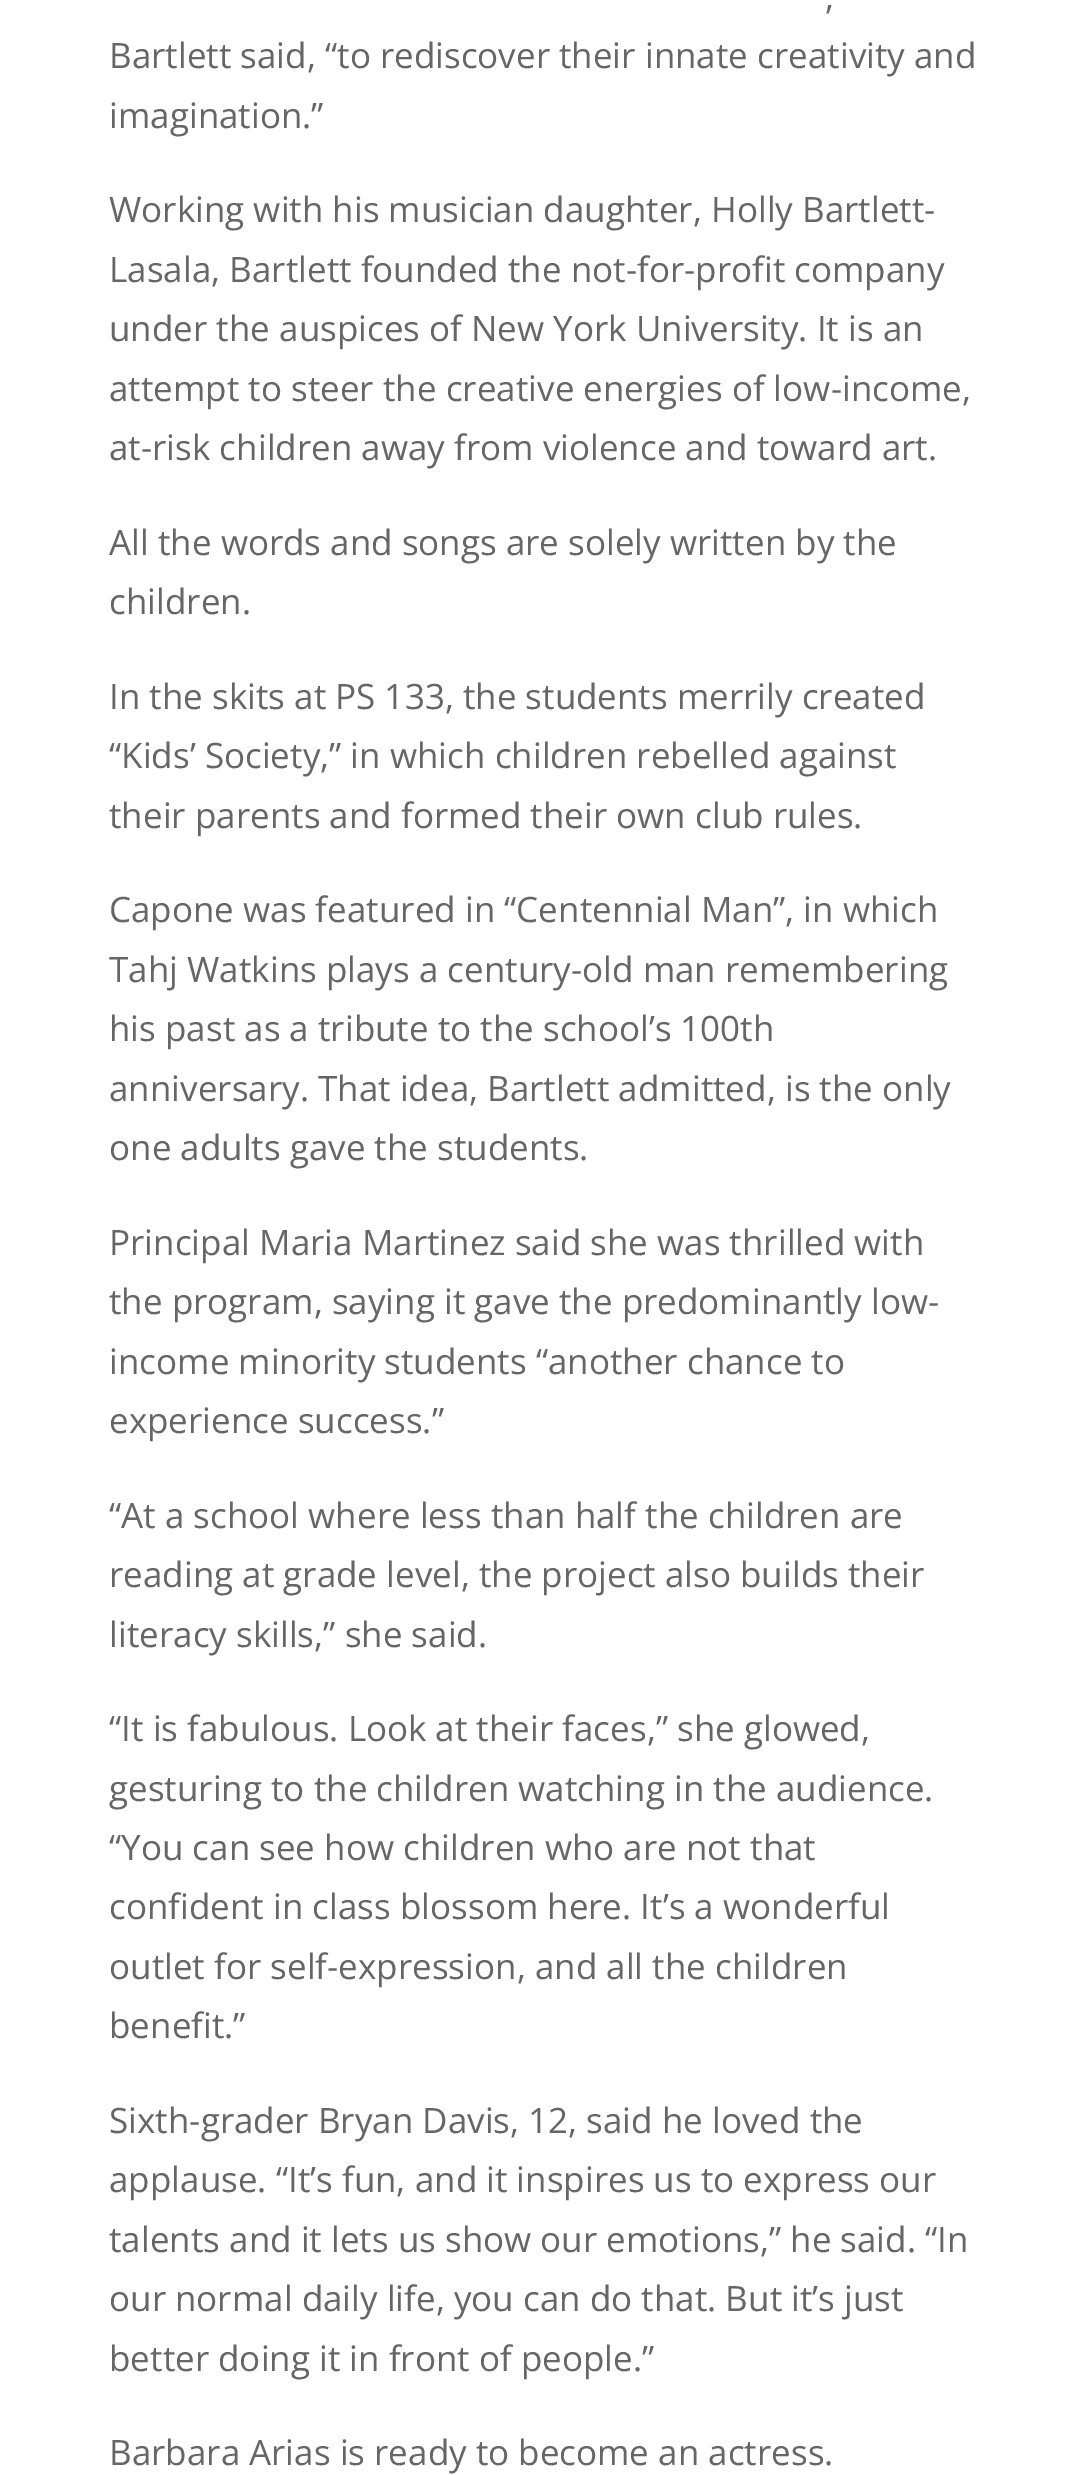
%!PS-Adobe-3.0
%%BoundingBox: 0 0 1084 2475
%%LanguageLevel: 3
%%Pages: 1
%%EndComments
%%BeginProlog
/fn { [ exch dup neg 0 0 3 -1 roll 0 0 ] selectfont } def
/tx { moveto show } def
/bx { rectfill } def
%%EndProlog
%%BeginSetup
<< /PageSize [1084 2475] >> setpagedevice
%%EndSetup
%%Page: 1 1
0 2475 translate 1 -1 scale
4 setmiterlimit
1 setgray
0 0 1084 2475 bx
/OpenSans-Regular 35 fn
0.4 setgray
(,) 825 9 tx
(Bartlett said, “to rediscover their innate creativity and) 109 68 tx
(imagination.”) 109 128 tx
(Working with his musician daughter, Holly Bartlett-) 109 222 tx
(Lasala, Bartlett founded the not-for-profit company) 109 282 tx
(under the auspices of New York University. It is an) 109 341 tx
(attempt to steer the creative energies of low-income,) 109 401 tx
(at-risk children away from violence and toward art.) 109 460 tx
(All the words and songs are solely written by the) 109 555 tx
(children.) 109 614 tx
(In the skits at PS 133, the students merrily created) 109 709 tx
(“Kids’ Society,” in which children rebelled against) 109 768 tx
(their parents and formed their own club rules.) 109 828 tx
(Capone was featured in “Centennial Man”, in which) 109 922 tx
(Tahj Watkins plays a century-old man remembering) 109 982 tx
(his past as a tribute to the school’s 100th) 109 1041 tx
(anniversary. That idea, Bartlett admitted, is the only) 109 1101 tx
(one adults gave the students.) 109 1160 tx
(Principal Maria Martinez said she was thrilled with) 109 1255 tx
(the program, saying it gave the predominantly low-) 109 1314 tx
(income minority students “another chance to) 109 1374 tx
(experience success.”) 109 1433 tx
(“At a school where less than half the children are) 109 1528 tx
(reading at grade level, the project also builds their) 109 1587 tx
(literacy skills,” she said.) 109 1647 tx
(“It is fabulous. Look at their faces,” she glowed,) 109 1741 tx
(gesturing to the children watching in the audience.) 109 1801 tx
(“You can see how children who are not that) 109 1860 tx
(confident in class blossom here. It’s a wonderful) 109 1919 tx
(outlet for self-expression, and all the children) 109 1979 tx
(benefit.”) 109 2038 tx
(Sixth-grader Bryan Davis, 12, said he loved the) 109 2133 tx
(applause. “It’s fun, and it inspires us to express our) 109 2192 tx
(talents and it lets us show our emotions,” he said. “In) 109 2252 tx
(our normal daily life, you can do that. But it’s just) 109 2311 tx
(better doing it in front of people.”) 109 2371 tx
(Barbara Arias is ready to become an actress.) 109 2465 tx
showpage
%%EOF
